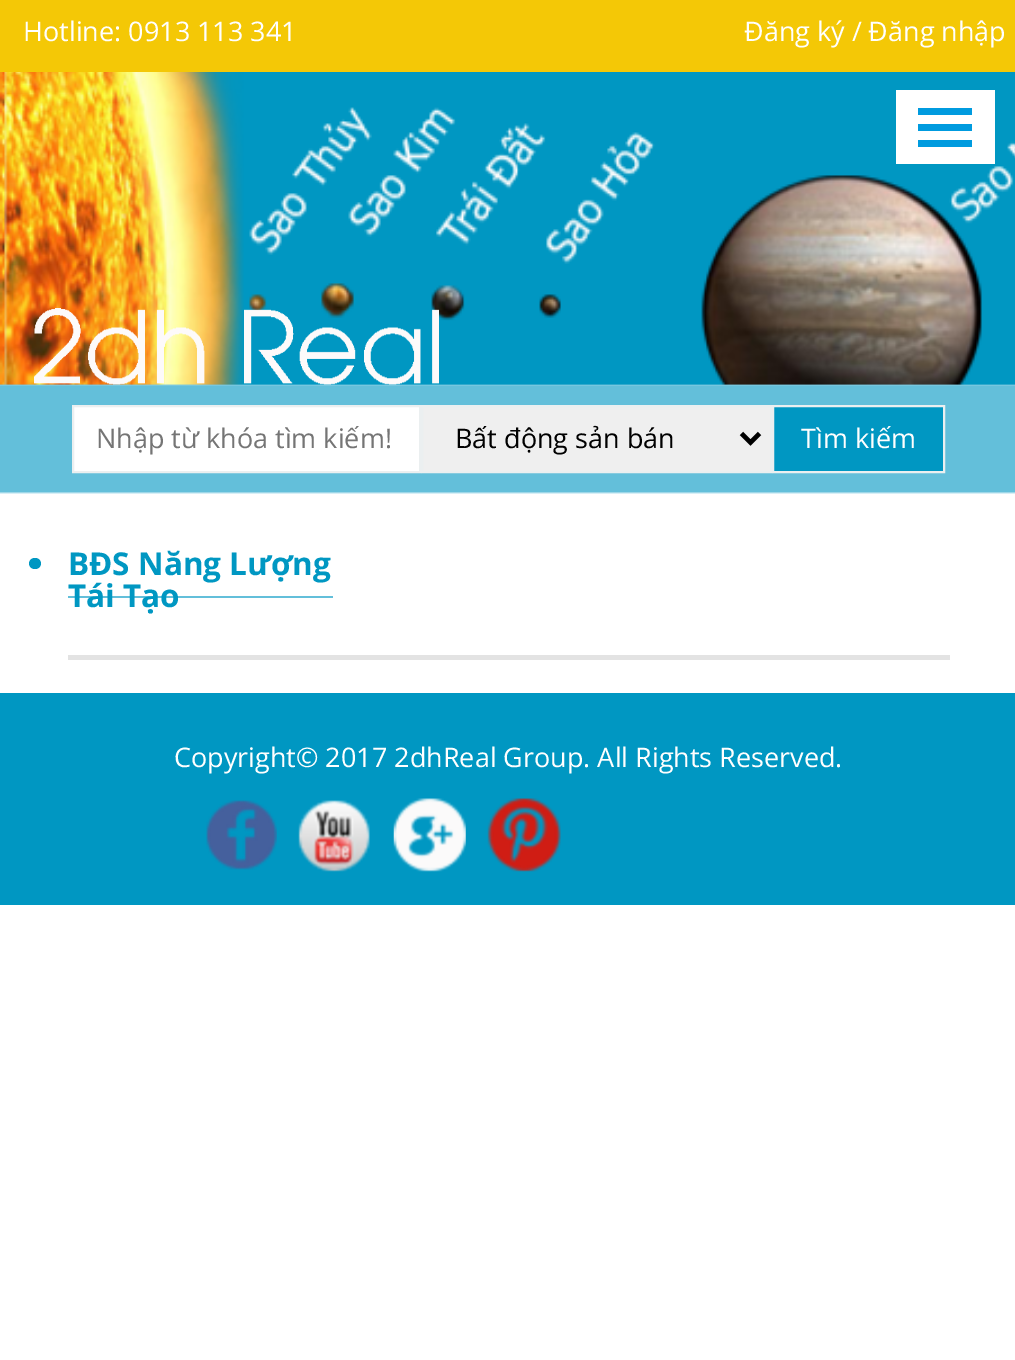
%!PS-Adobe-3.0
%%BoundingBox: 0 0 1015 1360
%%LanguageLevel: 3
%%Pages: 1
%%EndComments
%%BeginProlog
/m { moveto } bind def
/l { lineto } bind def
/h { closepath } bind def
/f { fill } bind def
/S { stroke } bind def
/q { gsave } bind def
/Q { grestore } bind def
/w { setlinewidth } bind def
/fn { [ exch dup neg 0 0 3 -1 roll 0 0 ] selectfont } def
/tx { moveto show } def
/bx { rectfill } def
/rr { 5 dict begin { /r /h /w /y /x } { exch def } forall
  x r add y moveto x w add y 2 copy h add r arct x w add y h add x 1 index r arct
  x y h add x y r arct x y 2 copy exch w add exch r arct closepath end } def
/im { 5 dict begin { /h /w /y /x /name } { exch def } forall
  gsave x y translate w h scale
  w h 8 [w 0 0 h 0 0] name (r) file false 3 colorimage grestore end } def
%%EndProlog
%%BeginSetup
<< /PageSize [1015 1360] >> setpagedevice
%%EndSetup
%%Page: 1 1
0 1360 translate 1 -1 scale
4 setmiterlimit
1 setgray
0 0 1015 1360 bx
0.957 0.784 0.024 setrgbcolor
0 0 1015 72 bx
/OpenSans-Regular 27 fn
1 setgray
(Hotline: 0913 113 341) 23 41 tx
(Đăng ký / Đăng nhập) 744 41 tx
(image0.raw) 0 72 1015 313 im
(image1.raw) 34 308 405 77 im
(image2.raw) 0 384 1015 110 im
73 406 m 420 406 l 420 472 l 73 472 l h q f Q
0.922 0.937 0.941 setrgbcolor
2 w
S
0.459 setgray
(Nhập từ khóa tìm kiếm!) 96 448 tx
0.937 setgray
422 406 m 771 406 l 771 472 l 422 472 l h q f Q
0.922 0.937 0.941 setrgbcolor
S
0 setgray
4.5 w
741.5 433.5 m 750.5 442.5 l 759.5 433.5 l S
(Bất động sản bán) 455 448 tx
0 0.592 0.761 setrgbcolor
773 406 m 944 406 l 944 472 l 773 472 l h q f Q
0.922 0.937 0.941 setrgbcolor
2 w
S
1 setgray
(Tìm kiếm) 801 448 tx
0.388 0.749 0.855 setrgbcolor
68 596 265 2 bx
0 0.592 0.761 setrgbcolor
29 558 12 11 5.5 rr f
/OpenSans-Bold 31.5 fn
(BĐS Năng Lượng) 68 575 tx
(Tái Tạo) 68 607 tx
0.89 setgray
68 655 882 5 bx
0 0.592 0.761 setrgbcolor
0 693 1015 212 bx
/OpenSans-Regular 27 fn
1 setgray
(Copyright© 2017 2dhReal Group. All Rights Reserved.) 174 767 tx
(image3.raw) 206 800 71 70 im
(image4.raw) 298 800 72 72 im
(image5.raw) 393 798 73 74 im
(image6.raw) 487 798 74 74 im
896 90 99 74 bx
0 0.608 0.875 setrgbcolor
918 108 54 7 bx
918 124 54 7 bx
918 140 54 7 bx
showpage
%%EOF
